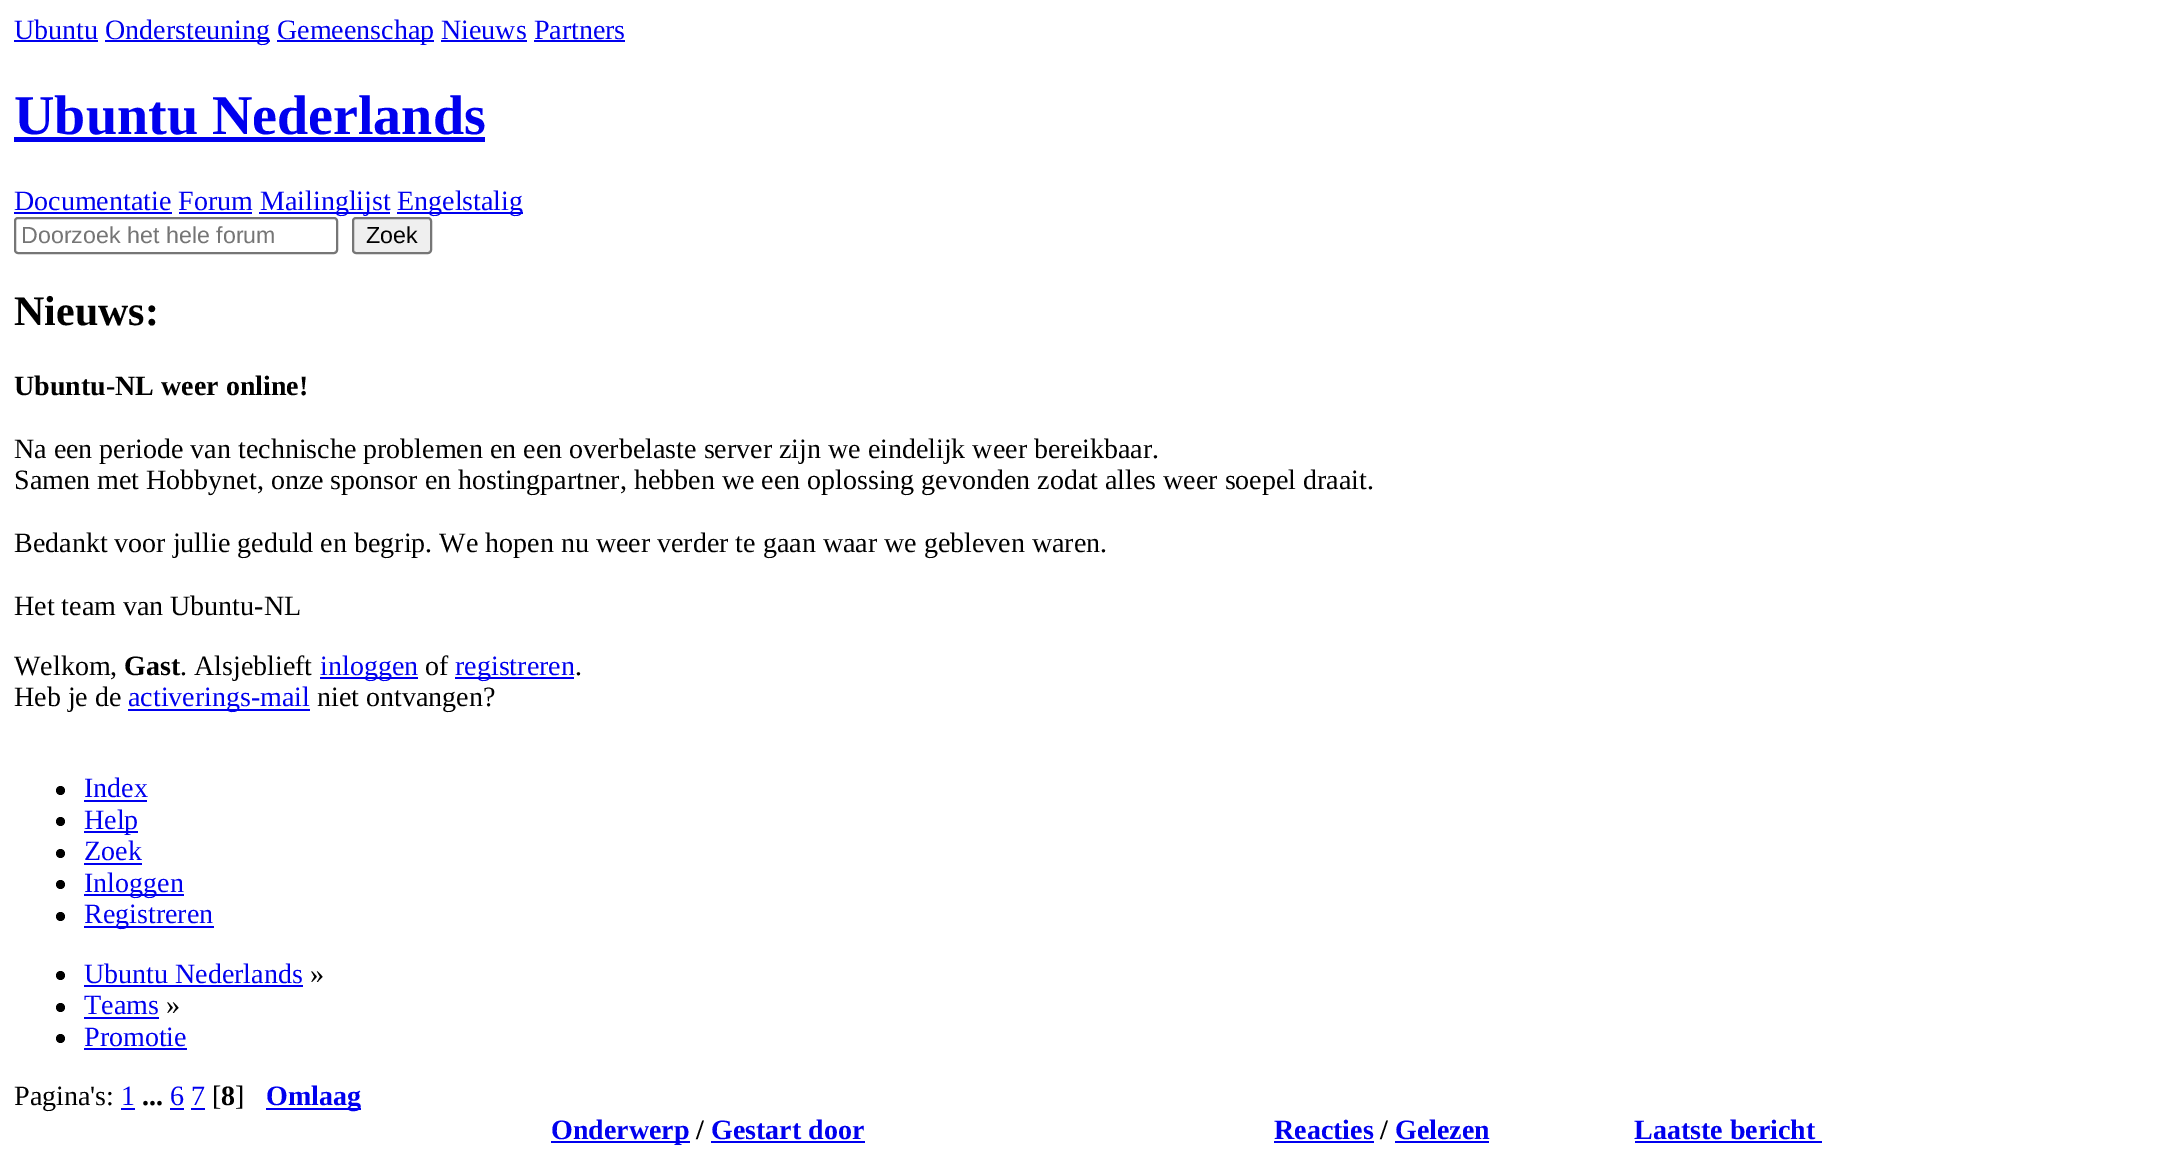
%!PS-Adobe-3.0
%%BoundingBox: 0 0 2168 1155
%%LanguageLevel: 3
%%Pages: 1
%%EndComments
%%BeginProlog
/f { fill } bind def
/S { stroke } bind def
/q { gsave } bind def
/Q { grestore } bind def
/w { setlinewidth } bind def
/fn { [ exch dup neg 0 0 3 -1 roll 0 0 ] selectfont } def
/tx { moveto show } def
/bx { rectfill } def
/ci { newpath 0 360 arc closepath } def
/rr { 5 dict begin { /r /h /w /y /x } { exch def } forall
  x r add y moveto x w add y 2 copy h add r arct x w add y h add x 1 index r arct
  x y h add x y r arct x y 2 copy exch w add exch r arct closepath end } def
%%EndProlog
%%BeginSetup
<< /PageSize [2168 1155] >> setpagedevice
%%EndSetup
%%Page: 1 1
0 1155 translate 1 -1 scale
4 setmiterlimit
1 setgray
0 0 2168 1155 bx
/LiberationSerif-Regular 28 fn
0 0 0.933 setrgbcolor
(Ubuntu) 14 39 tx
14 40 84 2 bx
105 40 165 2 bx
(Ondersteuning) 105 39 tx
277 40 157 2 bx
(Gemeenschap Nieuws Partners) 277 39 tx
441 40 86 2 bx
534 40 91 2 bx
/LiberationSerif-Bold 56 fn
(Ubuntu Nederlands) 14 134 tx
14 137 471 5 bx
/LiberationSerif-Regular 28 fn
(Documentatie Forum) 14 210 tx
14 212 158 2 bx
259 212 131 2 bx
(Mailinglijst) 260 210 tx
397 212 126 2 bx
(Engelstalig) 397 210 tx
179 212 73 2 bx
0.463 setgray
2 w
15 218 322 35 3 rr S
/LiberationSans-Regular 23.25 fn
0.459 setgray
(Doorzoek het hele forum) 21 243 tx
0.937 setgray
353 218 78 35 3 rr q f Q
0.463 setgray
S
0 setgray
(Zoek) 366 243 tx
/LiberationSerif-Bold 42 fn
(Nieuws:) 14 325 tx
/LiberationSerif-Bold 28 fn
(Ubuntu-NL weer online!) 14 395 tx
/LiberationSerif-Regular 28 fn
(Na een periode van technische problemen en een overbelaste server zijn we eindelijk weer bereikbaar.) 14 458 tx
(Samen met Hobbynet, onze sponsor en hostingpartner, hebben we een oplossing gevonden zodat alles weer soepel draait.) 14 489 tx
(Bedankt voor jullie geduld en begrip. We hopen nu weer verder te gaan waar we gebleven waren.) 14 552 tx
(Het team van Ubuntu-NL) 14 615 tx
(Welkom,) 14 675 tx
/LiberationSerif-Bold 28 fn
(Gast) 124 675 tx
/LiberationSerif-Regular 28 fn
(. Alsjeblieft) 180 675 tx
0 0 0.933 setrgbcolor
320 677 98 2 bx
(inloggen) 320 675 tx
0 setgray
(of) 425 675 tx
0 0 0.933 setrgbcolor
455 677 119 2 bx
(registreren) 455 675 tx
0 setgray
(.) 575 675 tx
(Heb je de) 14 706 tx
0 0 0.933 setrgbcolor
128 709 182 2 bx
(activerings-mail) 128 706 tx
0 setgray
(niet ontvangen?) 317 706 tx
60.5 790.5 4.5 ci f
0 0 0.933 setrgbcolor
(Index) 84 797 tx
84 800 63 2 bx
0 setgray
60.5 821.5 4.5 ci f
0 0 0.933 setrgbcolor
84 831 54 2 bx
(Help) 84 829 tx
0 setgray
60.5 853.5 4.5 ci f
0 0 0.933 setrgbcolor
(Zoek) 84 860 tx
84 863 58 2 bx
0 setgray
60.5 884.5 4.5 ci f
0 0 0.933 setrgbcolor
84 894 100 2 bx
(Inloggen) 84 892 tx
0 setgray
60.5 916.5 4.5 ci f
0 0 0.933 setrgbcolor
84 926 130 2 bx
(Registreren) 84 923 tx
0 setgray
60.5 975.5 4.5 ci f
0 0 0.933 setrgbcolor
(Ubuntu Nederlands) 84 983 tx
84 985 219 2 bx
0 setgray
(») 310 983 tx
60.5 1007.5 4.5 ci f
0 0 0.933 setrgbcolor
(Teams) 84 1014 tx
84 1017 75 2 bx
0 setgray
(») 166 1014 tx
60.5 1038.5 4.5 ci f
0 0 0.933 setrgbcolor
(Promotie) 84 1046 tx
84 1048 103 2 bx
0 setgray
(Pagina's:) 14 1105 tx
0 0 0.933 setrgbcolor
(1) 121 1105 tx
121 1108 14 2 bx
/LiberationSerif-Bold 28 fn
0 setgray
(...) 142 1105 tx
/LiberationSerif-Regular 28 fn
0 0 0.933 setrgbcolor
(6 7) 170 1105 tx
170 1108 14 2 bx
0 setgray
([) 212 1105 tx
/LiberationSerif-Bold 28 fn
(8) 221 1105 tx
/LiberationSerif-Regular 28 fn
(]) 235 1105 tx
0 0 0.933 setrgbcolor
266 1108 95 2 bx
/LiberationSerif-Bold 28 fn
(Omlaag) 266 1105 tx
191 1108 14 2 bx
551 1141 139 2 bx
(Onderwerp) 551 1139 tx
0 setgray
(/) 696 1139 tx
0 0 0.933 setrgbcolor
(Gestart door) 711 1139 tx
711 1141 154 2 bx
(Reacties) 1274 1139 tx
1274 1141 100 2 bx
0 setgray
(/) 1380 1139 tx
0 0 0.933 setrgbcolor
(Gelezen) 1395 1139 tx
1395 1141 94 2 bx
(Laatste bericht) 1634 1139 tx
1635 1141 187 2 bx
showpage
%%EOF
